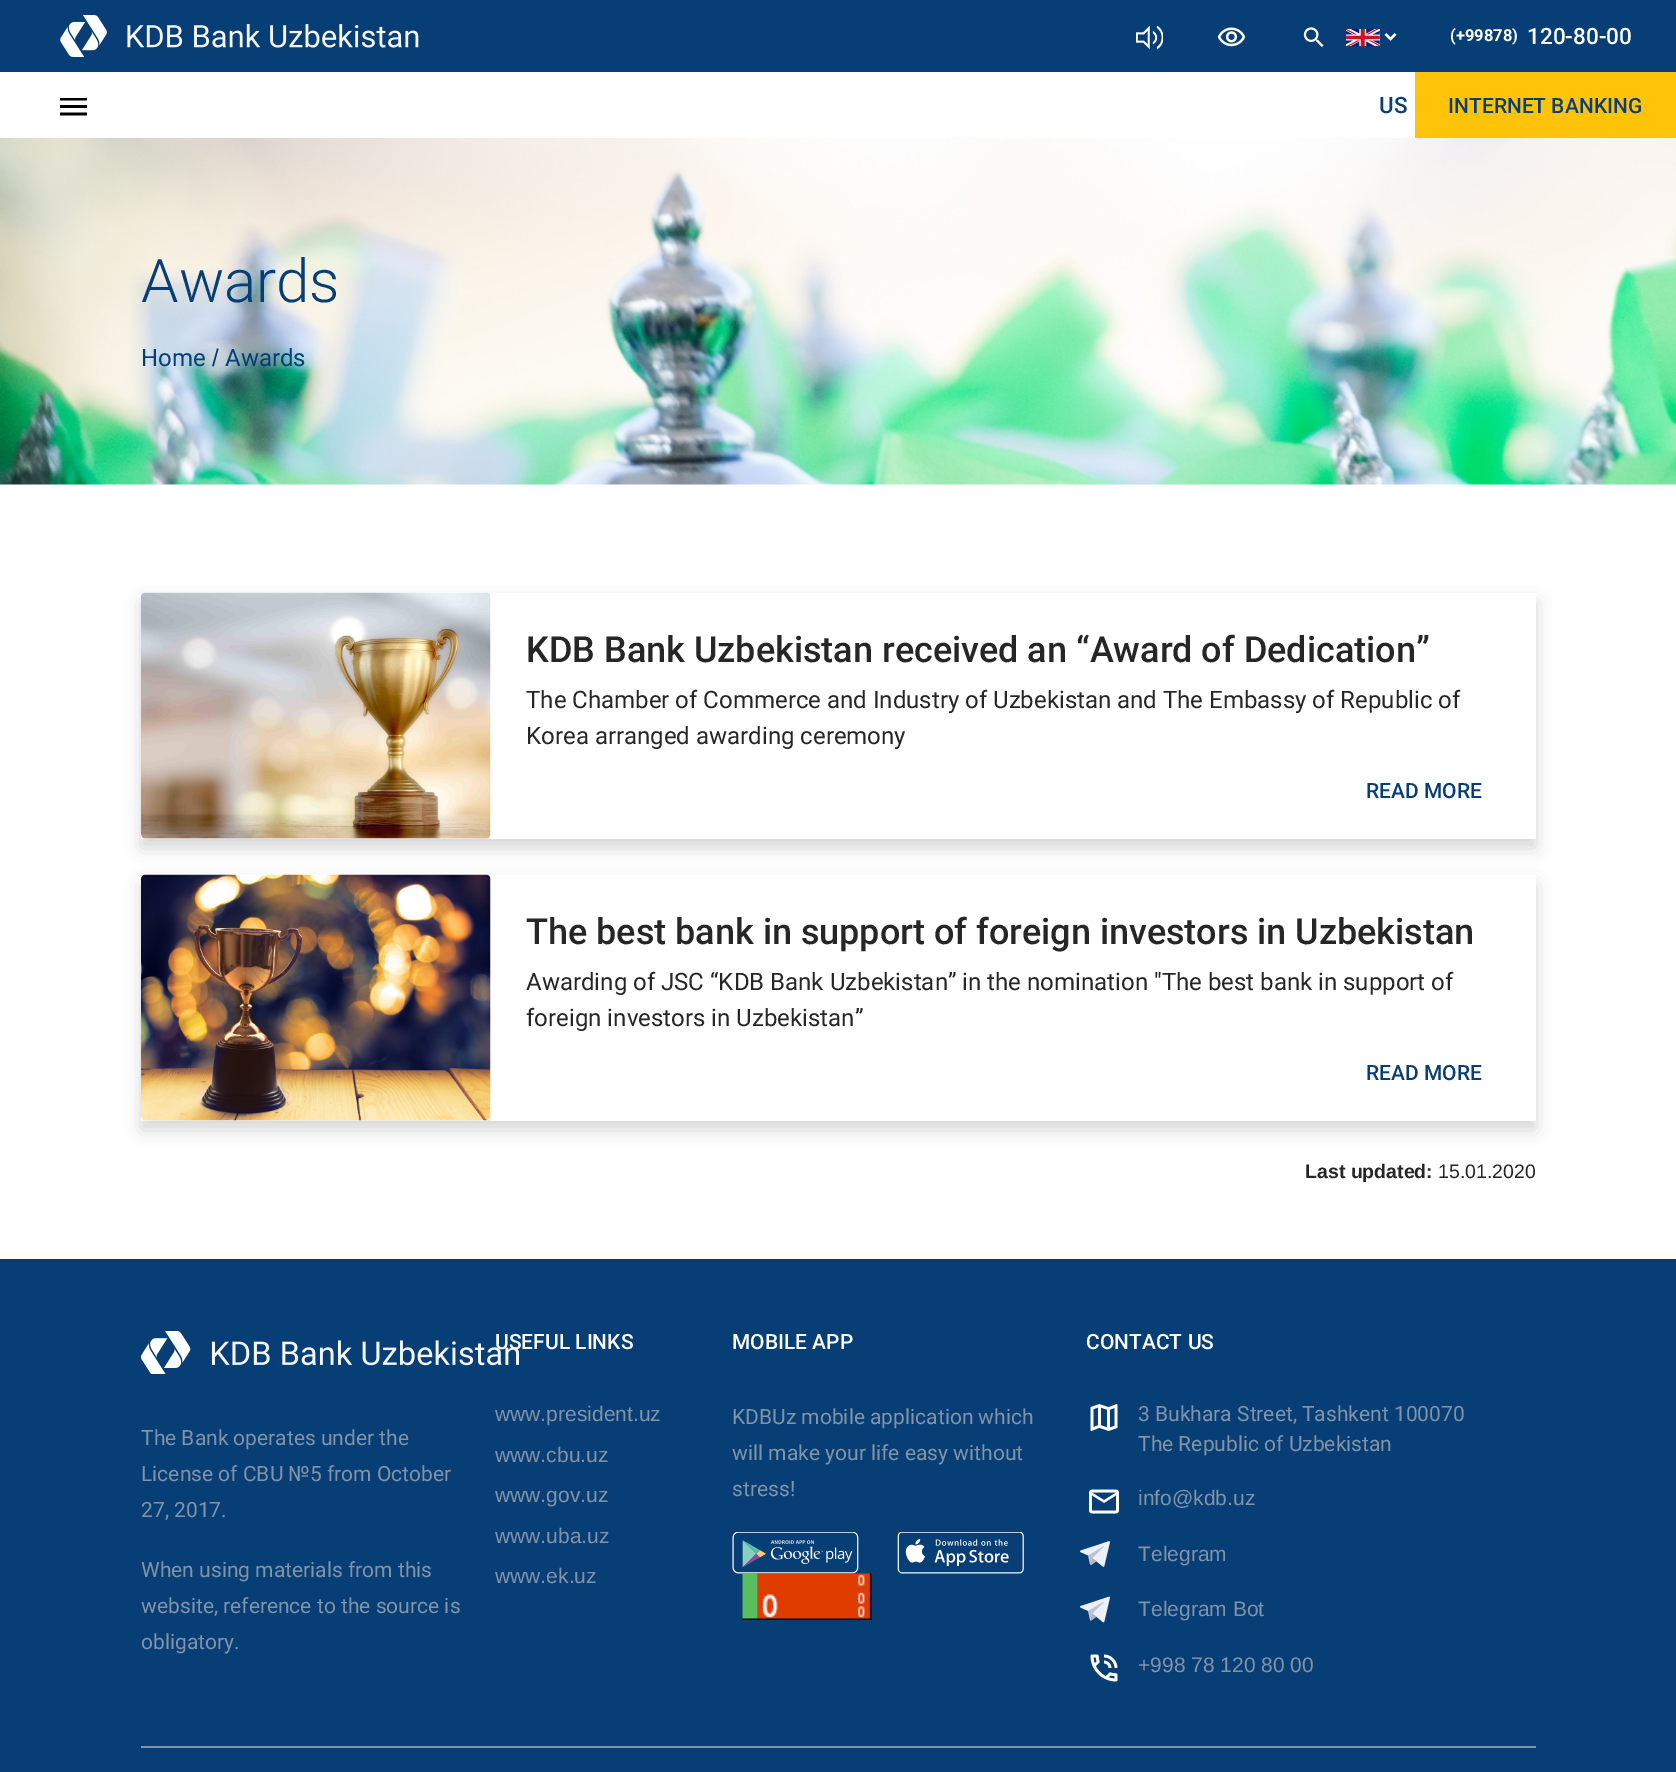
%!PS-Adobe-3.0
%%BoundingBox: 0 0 1676 1772
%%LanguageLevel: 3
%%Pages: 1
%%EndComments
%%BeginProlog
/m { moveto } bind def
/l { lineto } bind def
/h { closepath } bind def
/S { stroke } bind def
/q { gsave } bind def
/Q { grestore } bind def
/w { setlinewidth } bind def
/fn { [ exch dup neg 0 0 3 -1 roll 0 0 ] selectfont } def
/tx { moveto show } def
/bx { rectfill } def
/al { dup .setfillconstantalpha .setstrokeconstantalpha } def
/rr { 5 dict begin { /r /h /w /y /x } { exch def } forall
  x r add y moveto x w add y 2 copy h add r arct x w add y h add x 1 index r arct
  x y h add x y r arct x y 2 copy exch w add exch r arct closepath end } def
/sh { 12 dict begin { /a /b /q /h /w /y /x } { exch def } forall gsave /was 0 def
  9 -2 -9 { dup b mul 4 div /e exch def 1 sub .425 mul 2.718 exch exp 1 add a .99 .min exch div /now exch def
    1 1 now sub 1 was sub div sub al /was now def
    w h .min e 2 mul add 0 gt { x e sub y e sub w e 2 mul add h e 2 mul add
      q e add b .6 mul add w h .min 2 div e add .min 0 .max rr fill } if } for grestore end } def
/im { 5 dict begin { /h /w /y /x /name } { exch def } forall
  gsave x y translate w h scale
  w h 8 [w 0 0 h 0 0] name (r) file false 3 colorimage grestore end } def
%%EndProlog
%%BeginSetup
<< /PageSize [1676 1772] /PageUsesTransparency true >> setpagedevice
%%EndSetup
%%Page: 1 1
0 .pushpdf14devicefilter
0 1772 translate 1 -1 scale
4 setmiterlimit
1 setgray
0 0 1676 1772 bx
0.027 0.243 0.459 setrgbcolor
0 0 1676 72 bx
(image0.raw) 60 15 359 42 im
(image1.raw) 1136 26 27 24 im
(image2.raw) 1217 27 29 20 im
(image3.raw) 1303 27 21 20 im
(image4.raw) 1346 29 34 18 im
1 setgray
2.3 w
1385.5 34 m 1390.5 39 l 1395.5 34 l S
/Roboto-Bold 16.5 fn
(\(+99878\)) 1450 41 tx
/Roboto-Medium 22.5 fn
(120-80-00) 1527 44 tx
(image5.raw) 60 98 27 18 im
0.027 0.243 0.459 setrgbcolor
(US) 1379 113 tx
1 0.769 0.035 setrgbcolor
1415 72 261 66 bx
/Roboto-Medium 21 fn
0.027 0.243 0.459 setrgbcolor
(INTERNET BANKING) 1448 113 tx
(image6.raw) 0 138 1676 347 im
/Roboto-Light 60 fn
(Awards) 141 302 tx
/Roboto-Regular 24 fn
(Home) 141 366 tx
/LiberationSans-Regular 24 fn
(/) 212 366 tx
/Roboto-Regular 24 fn
(Awards) 225 366 tx
q
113 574 m 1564 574 l 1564 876 l 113 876 l h 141 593 m 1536 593 l 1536 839 l 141 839 l h eoclip newpath
0 setgray
141 602 1395 246 0 9 0.16 sh
Q
(image7.raw) 141 592 350 247 im
/Roboto-Medium 36 fn
0.149 setgray
(KDB Bank Uzbekistan received an “Award of Dedication”) 526 662 tx
/Roboto-Regular 24 fn
(The Chamber of Commerce and Industry of Uzbekistan and The Embassy of Republic of) 526 708 tx
(Korea arranged awarding ceremony) 526 744 tx
/Roboto-Medium 21 fn
0.027 0.243 0.459 setrgbcolor
(READ MORE) 1366 798 tx
q
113 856 m 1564 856 l 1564 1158 l 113 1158 l h 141 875 m 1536 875 l 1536 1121 l 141 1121 l h eoclip newpath
0 setgray
141 884 1395 246 0 9 0.16 sh
Q
(image8.raw) 141 874 350 247 im
/Roboto-Medium 36 fn
0.149 setgray
(The best bank in support of foreign investors in Uzbekistan) 526 944 tx
/Roboto-Regular 24 fn
(Awarding of JSC “KDB Bank Uzbekistan” in the nomination "The best bank in support of) 526 990 tx
(foreign investors in Uzbekistan”) 526 1026 tx
/Roboto-Medium 21 fn
0.027 0.243 0.459 setrgbcolor
(READ MORE) 1366 1080 tx
/LiberationSans-Bold 19.5 fn
0.149 setgray
(Last updated:) 1305 1178 tx
/LiberationSans-Regular 19.5 fn
(15.01.2020) 1438 1178 tx
0.027 0.243 0.459 setrgbcolor
0 1259 1676 513 bx
(image9.raw) 141 1331 378 43 im
/Roboto-Regular 21 fn
0.506 0.576 0.655 setrgbcolor
(The Bank operates under the) 141 1445 tx
(License of CBU №5 from October) 141 1481 tx
(27, 2017.) 141 1517 tx
(When using materials from this) 141 1577 tx
(website, reference to the source is) 141 1613 tx
(obligatory.) 141 1649 tx
/Roboto-Medium 21 fn
1 setgray
(USEFUL LINKS) 495 1349 tx
/LiberationSans-Regular 21 fn
0.506 0.576 0.655 setrgbcolor
(www.president.uz) 495 1421 tx
(www.cbu.uz) 495 1462 tx
(www.gov.uz) 495 1502 tx
(www.uba.uz) 495 1543 tx
(www.ek.uz) 495 1583 tx
/Roboto-Medium 21 fn
1 setgray
(MOBILE APP) 732 1349 tx
/Roboto-Regular 21 fn
0.506 0.576 0.655 setrgbcolor
(KDBUz mobile application which) 732 1424 tx
(will make your life easy without) 732 1460 tx
(stress!) 732 1496 tx
(image10.raw) 732 1532 127 42 im
(image11.raw) 897 1532 127 42 im
(image12.raw) 742 1573 130 47 im
/Roboto-Medium 21 fn
1 setgray
(CONTACT US) 1086 1349 tx
(image13.raw) 1090 1404 28 27 im
/Roboto-Regular 21 fn
0.506 0.576 0.655 setrgbcolor
(3 Bukhara Street, Tashkent 100070) 1138 1421 tx
(The Republic of Uzbekistan) 1138 1451 tx
(image14.raw) 1089 1489 30 25 im
/LiberationSans-Regular 21 fn
(info@kdb.uz) 1138 1505 tx
(image15.raw) 1080 1541 30 26 im
(Telegram) 1138 1561 tx
(image16.raw) 1080 1596 30 27 im
(Telegram Bot) 1138 1616 tx
(image17.raw) 1090 1654 28 28 im
(+998 78 120 80 00) 1138 1672 tx
141 1746 1395 2 bx
.poppdf14devicefilter showpage
%%EOF
